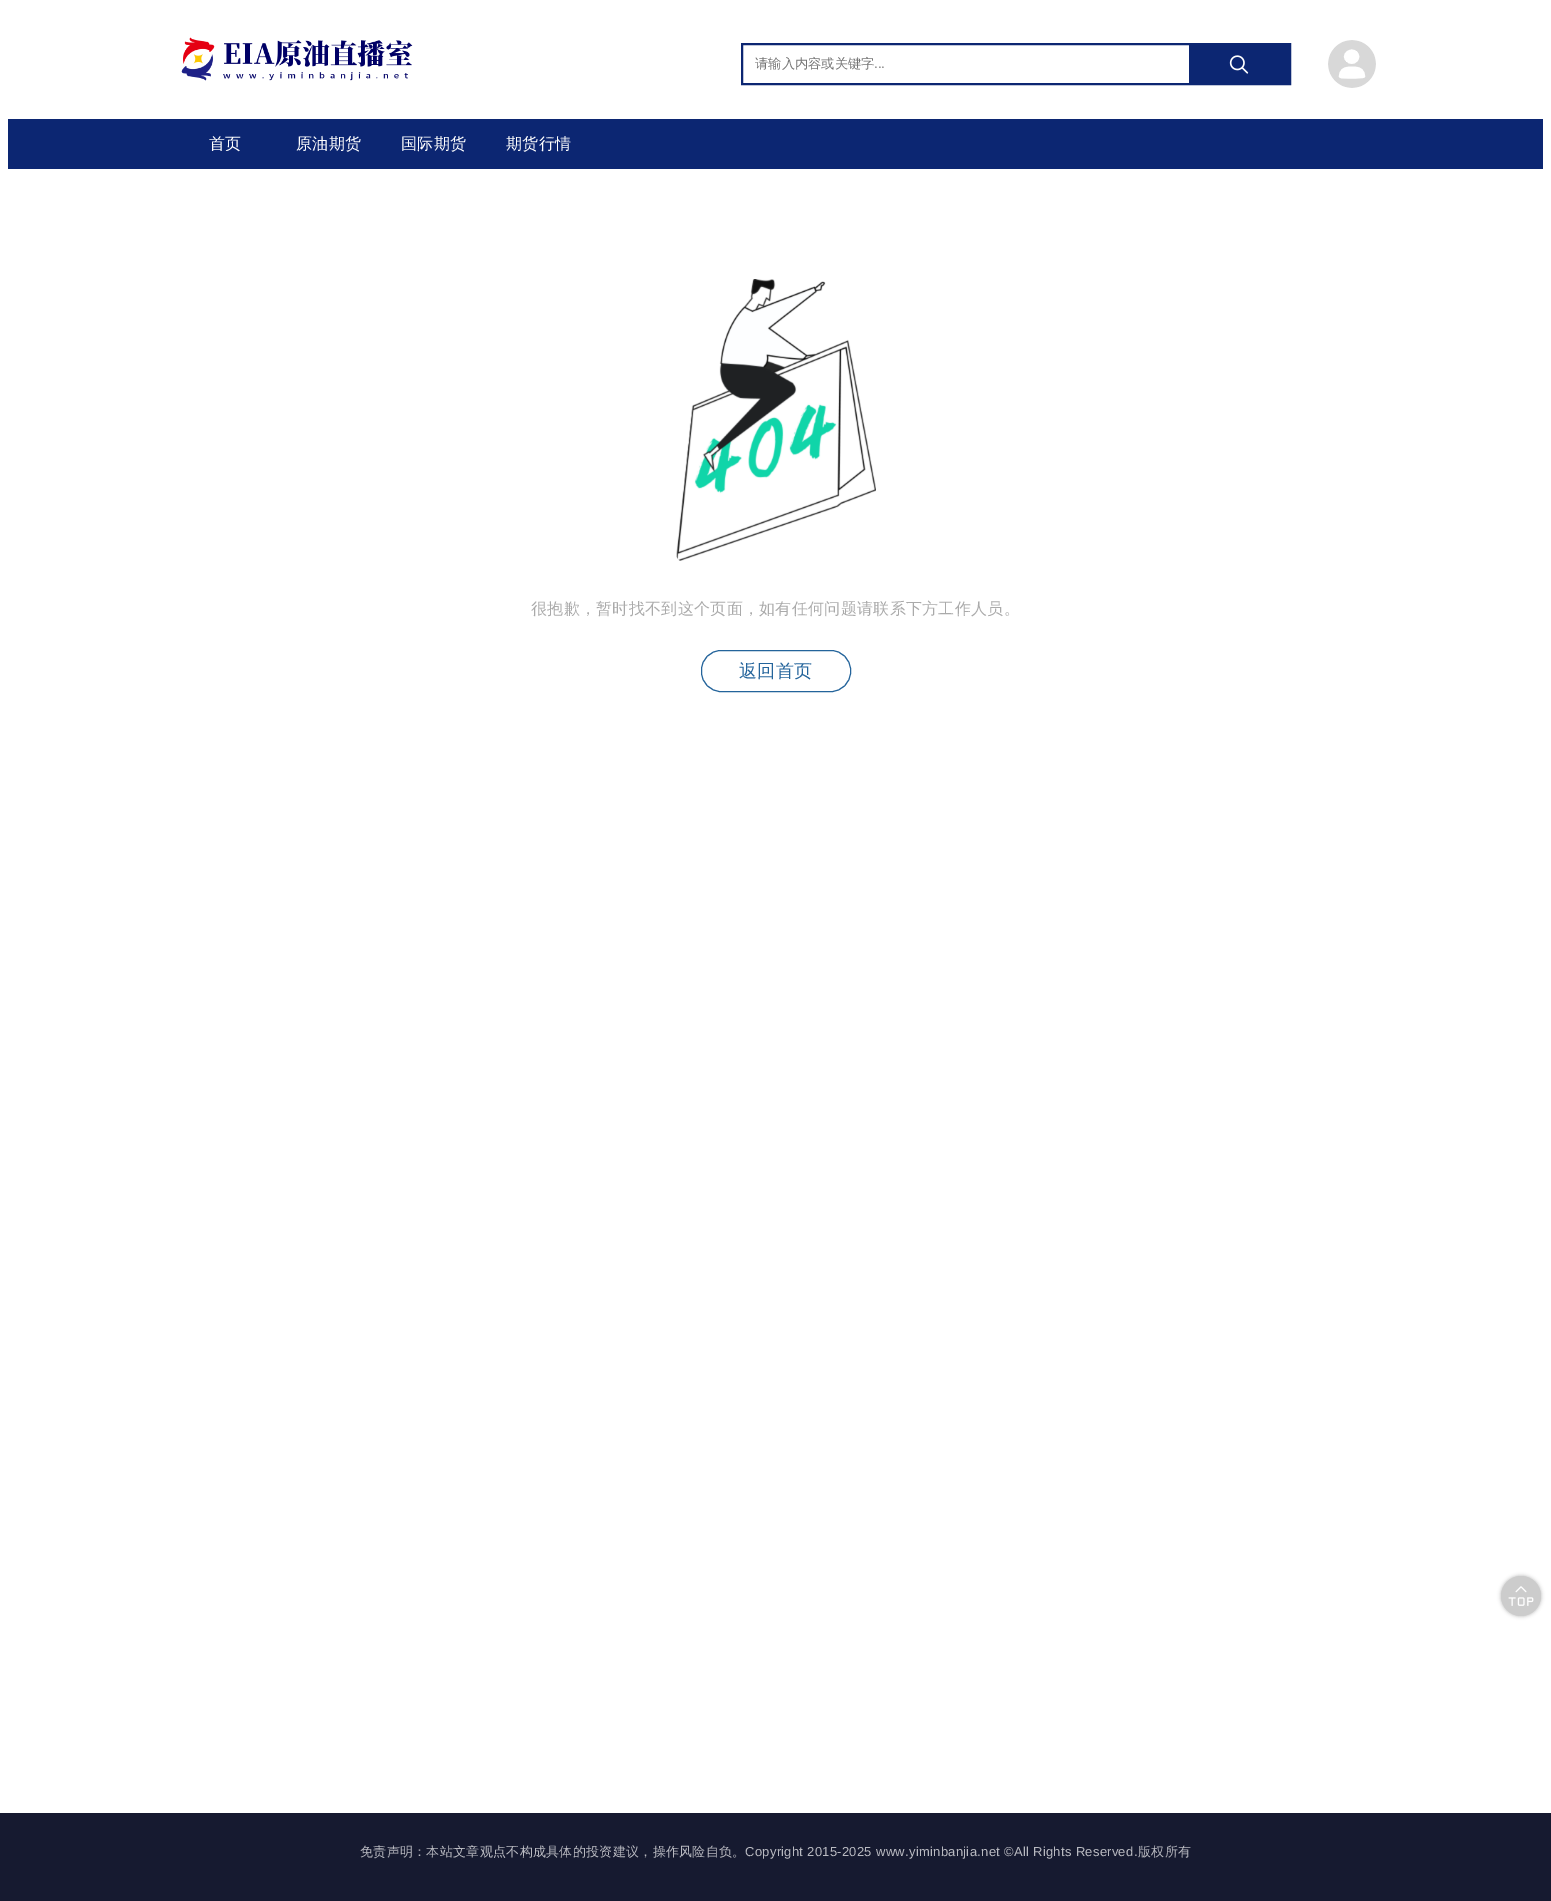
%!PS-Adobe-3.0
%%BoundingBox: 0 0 1551 1901
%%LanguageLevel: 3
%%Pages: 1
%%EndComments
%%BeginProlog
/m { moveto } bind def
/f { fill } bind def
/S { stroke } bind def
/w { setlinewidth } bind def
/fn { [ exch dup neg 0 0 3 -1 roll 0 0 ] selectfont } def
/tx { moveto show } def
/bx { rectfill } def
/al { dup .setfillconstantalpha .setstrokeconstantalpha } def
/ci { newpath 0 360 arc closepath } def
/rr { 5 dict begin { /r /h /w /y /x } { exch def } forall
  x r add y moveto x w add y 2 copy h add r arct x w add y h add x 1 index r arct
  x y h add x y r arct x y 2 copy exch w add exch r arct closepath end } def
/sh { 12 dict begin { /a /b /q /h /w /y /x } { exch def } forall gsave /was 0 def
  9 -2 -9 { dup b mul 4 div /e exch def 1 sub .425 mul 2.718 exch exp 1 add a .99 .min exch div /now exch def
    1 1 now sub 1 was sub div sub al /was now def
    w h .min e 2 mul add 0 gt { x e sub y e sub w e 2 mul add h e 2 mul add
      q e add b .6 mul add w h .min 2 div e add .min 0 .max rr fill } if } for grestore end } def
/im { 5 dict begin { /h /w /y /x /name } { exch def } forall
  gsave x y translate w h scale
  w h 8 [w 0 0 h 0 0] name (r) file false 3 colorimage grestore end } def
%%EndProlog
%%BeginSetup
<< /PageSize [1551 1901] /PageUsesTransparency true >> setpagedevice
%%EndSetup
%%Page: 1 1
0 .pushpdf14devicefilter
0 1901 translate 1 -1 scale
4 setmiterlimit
1 setgray
0 0 1551 1901 bx
(image0.raw) 181 37 232 44 im
0.047 0.149 0.447 setrgbcolor
2 w
742 44 548 40 rectstroke
/WenQuanYiZenHei-Medium 13.25 fn
0.459 setgray
(请输入内容或关键字) 755 68 tx
/LiberationSans-Regular 13.25 fn
(...) 874 68 tx
0.047 0.149 0.447 setrgbcolor
1189 45 100 38 bx
(image1.raw) 1229 55 20 19 im
0.933 setgray
1352 64 24 ci f
(image2.raw) 1328 40 48 48 im
0.047 0.149 0.447 setrgbcolor
8 119 1535 50 bx
/WenQuanYiZenHei-Medium 16 fn
1 setgray
209 149 m 0.3 0 (首页) ashow
296 149 m 0.3 0 (原油期货) ashow
401 149 m 0.3 0 (国际期货) ashow
506 149 m 0.3 0 (期货行情) ashow
(image3.raw) 676 279 200 282 im
0.667 setgray
531 614 m 0.3 0 (很抱歉，暂时找不到这个页面，如有任何问题请联系下方工作人员。) ashow
0.141 0.392 0.608 setrgbcolor
1 w
701.5 650.5 149 41 19.5 rr S
/WenQuanYiZenHei-Medium 18 fn
739 677 m 0.3 0 (返回首页) ashow
0 setgray
1501 1576 40 40 20 2 0.3 sh
0.8 setgray
1521 1596 20 ci f
(image4.raw) 1508 1586 26 20 im
0.086 0.102 0.188 setrgbcolor
0 1813 1551 88 bx
/WenQuanYiZenHei-Medium 13 fn
0.725 0.729 0.757 setrgbcolor
360 1856 m 0.3 0 (免责声明：本站文章观点不构成具体的投资建议，操作风险自负。) ashow
/LiberationSans-Regular 13 fn
745 1856 m 0.3 0 (Copyright 2015-2025 www.yiminbanjia.net ©All Rights Reserved.) ashow
/WenQuanYiZenHei-Medium 13 fn
1138 1856 m 0.3 0 (版权所有) ashow
.poppdf14devicefilter showpage
%%EOF
